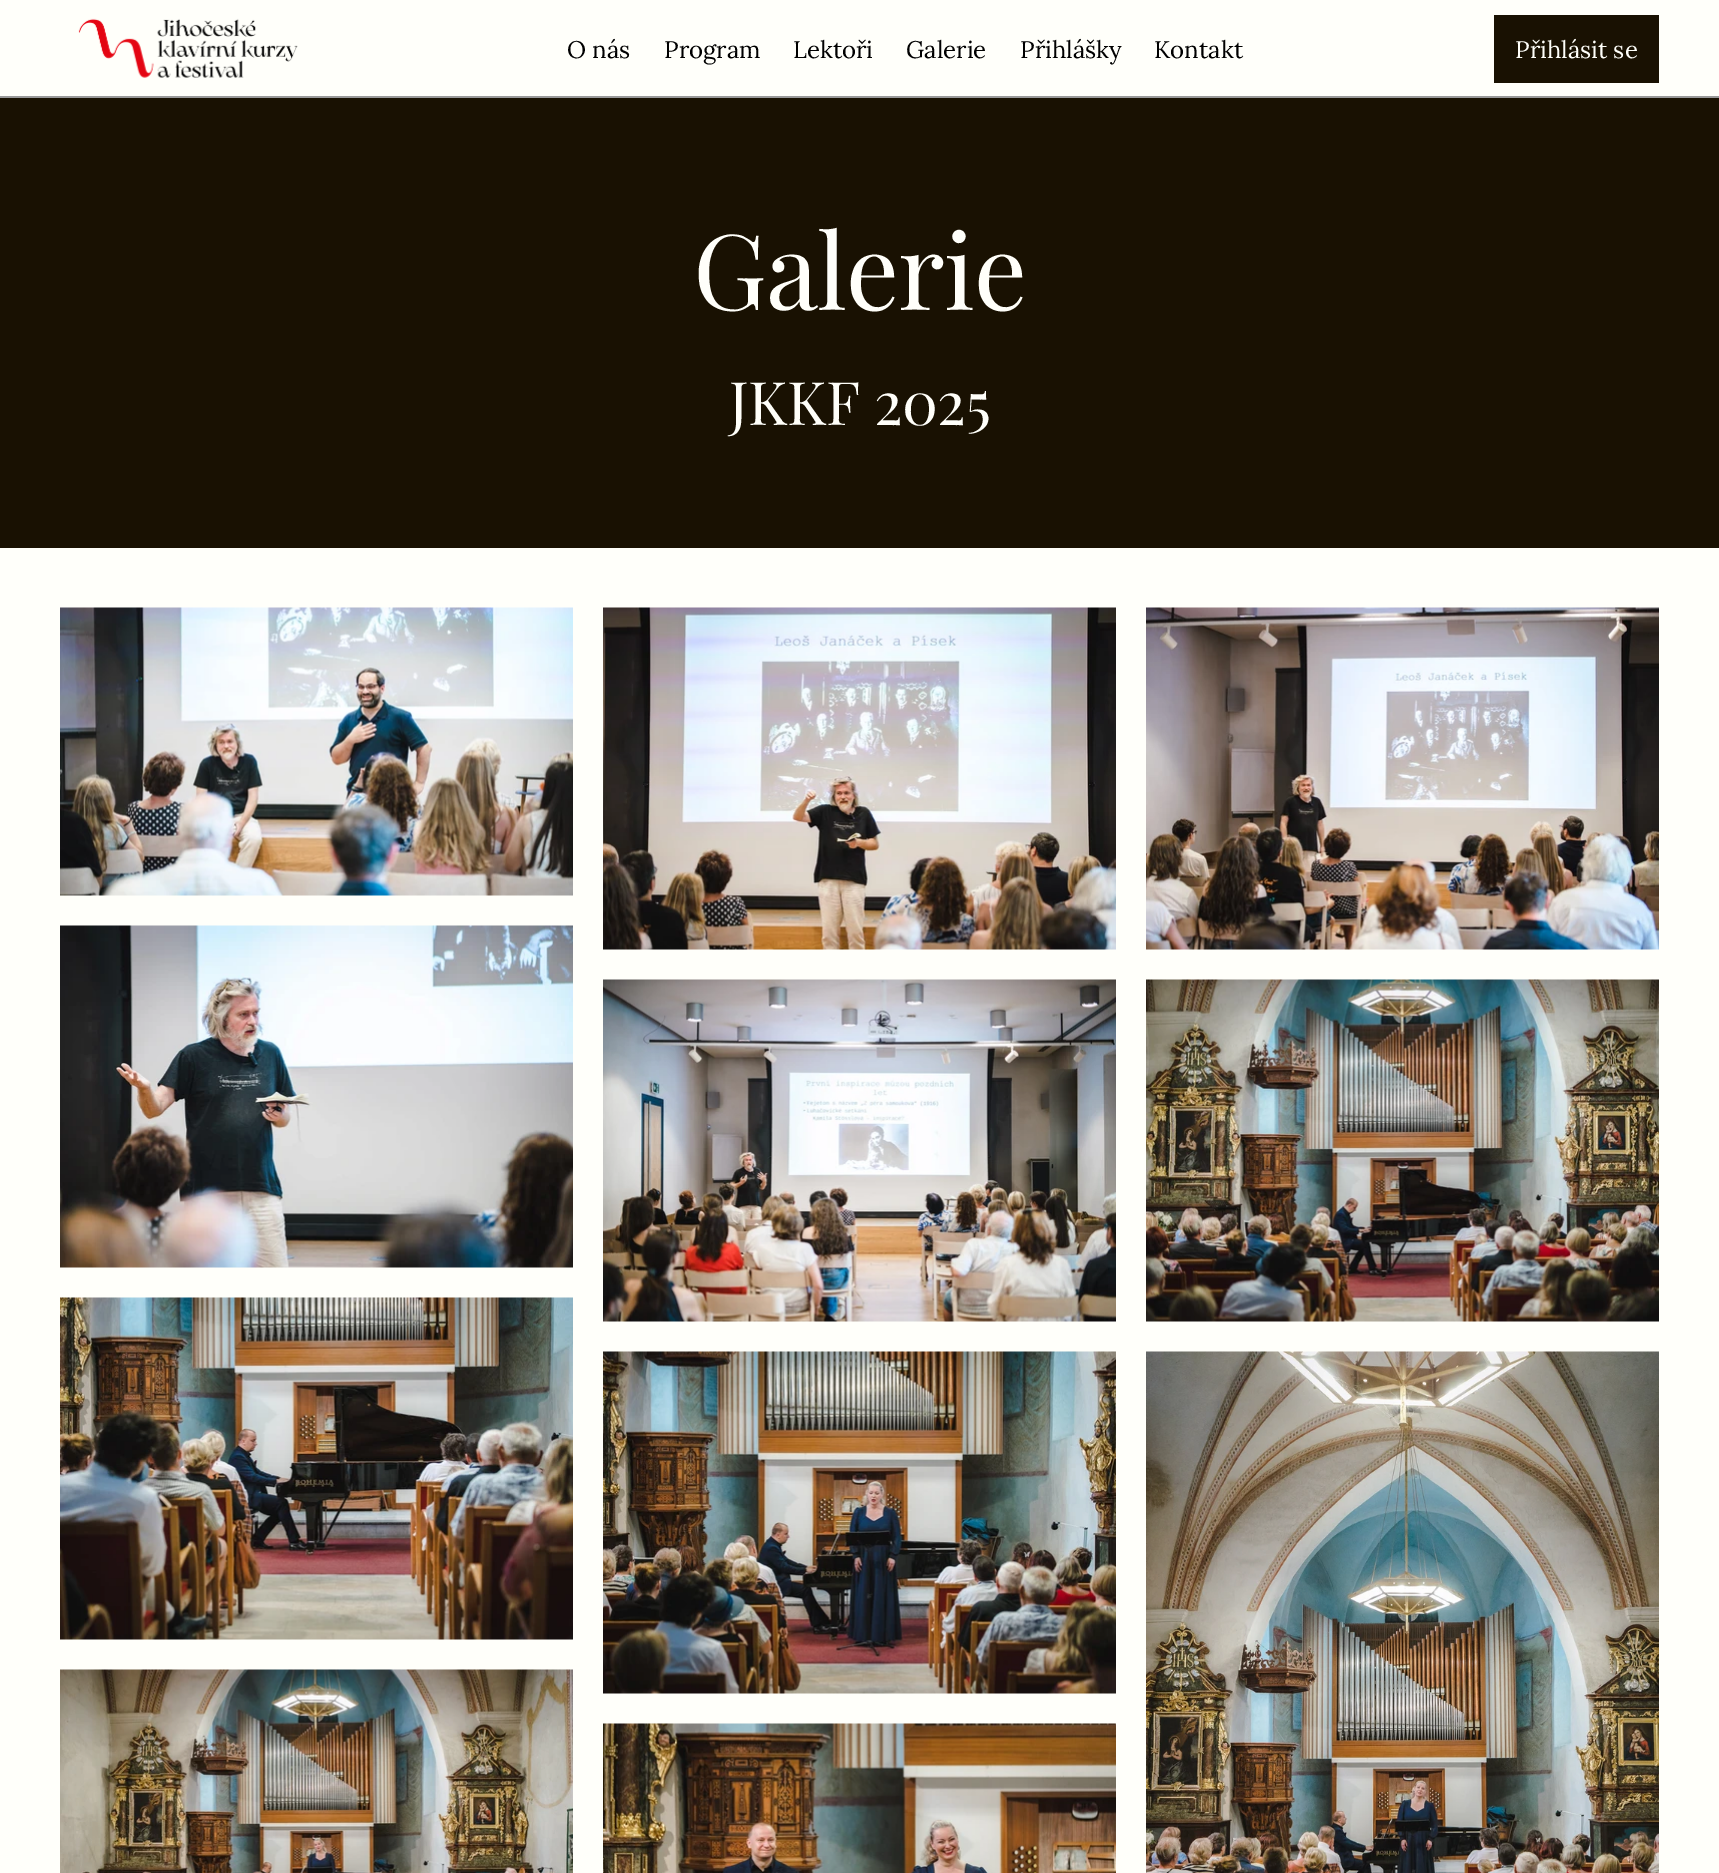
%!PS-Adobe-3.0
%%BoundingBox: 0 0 1719 1873
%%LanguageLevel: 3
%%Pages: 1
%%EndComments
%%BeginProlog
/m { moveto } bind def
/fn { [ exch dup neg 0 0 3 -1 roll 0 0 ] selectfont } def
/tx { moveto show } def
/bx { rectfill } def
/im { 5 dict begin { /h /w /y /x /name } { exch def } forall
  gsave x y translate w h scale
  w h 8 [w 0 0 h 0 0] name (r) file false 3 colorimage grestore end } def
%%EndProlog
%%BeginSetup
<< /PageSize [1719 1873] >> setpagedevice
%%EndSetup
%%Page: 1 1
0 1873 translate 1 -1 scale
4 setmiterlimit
1 1 0.98 setrgbcolor
0 0 1719 1873 bx
(image0.raw) 78 18 220 60 im
/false-Regular 24 fn
0 setgray
(O nás) 567 58 tx
(Program) 664 58 tx
(Lektoři) 793 58 tx
(Galerie) 906 58 tx
(Přihlášky) 1020 58 tx
(Kontakt) 1154 58 tx
0.098 0.067 0.008 setrgbcolor
1494 15 165 68 bx
1 1 0.98 setrgbcolor
(Přihlásit se) 1515 58 tx
0.6 setgray
0 96 1719 2 bx
0.098 0.067 0.008 setrgbcolor
0 98 1719 450 bx
/PlayfairDisplay-Regular 105 fn
1 1 0.98 setrgbcolor
693 310 m -1 0 (Galerie) ashow
/PlayfairDisplay-Regular 60 fn
729 425 m -0.5 0 (JKKF 2025) ashow
(image1.raw) 60 607 513 289 im
(image2.raw) 60 925 513 343 im
(image3.raw) 60 1297 513 343 im
(image4.raw) 60 1669 513 204 im
(image5.raw) 603 607 513 343 im
(image6.raw) 603 979 513 343 im
(image7.raw) 603 1351 513 343 im
(image8.raw) 603 1723 513 150 im
(image9.raw) 1146 607 513 343 im
(image10.raw) 1146 979 513 343 im
(image11.raw) 1146 1351 513 522 im
showpage
%%EOF
